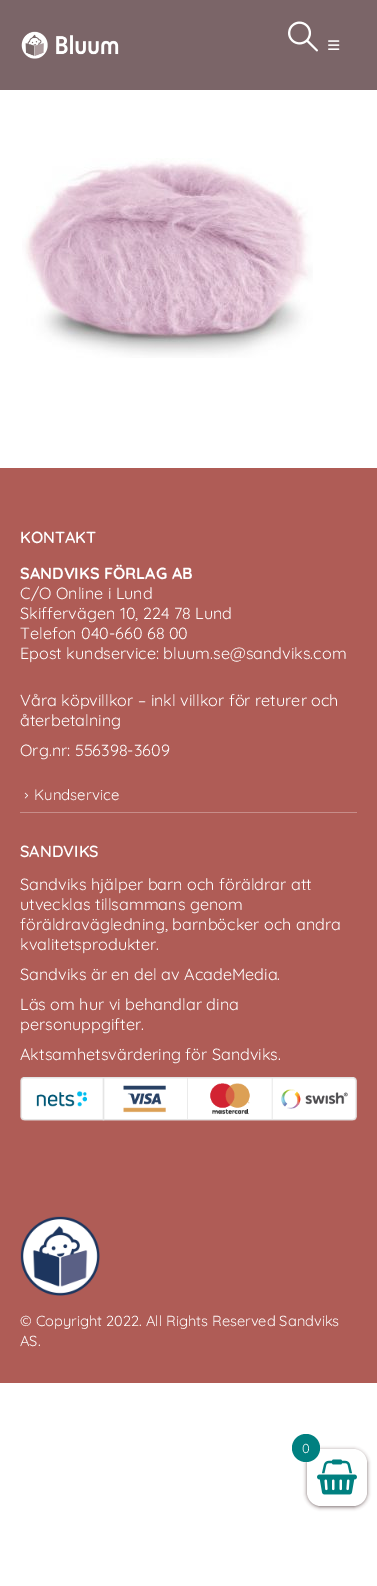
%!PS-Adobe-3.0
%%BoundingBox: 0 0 377 1586
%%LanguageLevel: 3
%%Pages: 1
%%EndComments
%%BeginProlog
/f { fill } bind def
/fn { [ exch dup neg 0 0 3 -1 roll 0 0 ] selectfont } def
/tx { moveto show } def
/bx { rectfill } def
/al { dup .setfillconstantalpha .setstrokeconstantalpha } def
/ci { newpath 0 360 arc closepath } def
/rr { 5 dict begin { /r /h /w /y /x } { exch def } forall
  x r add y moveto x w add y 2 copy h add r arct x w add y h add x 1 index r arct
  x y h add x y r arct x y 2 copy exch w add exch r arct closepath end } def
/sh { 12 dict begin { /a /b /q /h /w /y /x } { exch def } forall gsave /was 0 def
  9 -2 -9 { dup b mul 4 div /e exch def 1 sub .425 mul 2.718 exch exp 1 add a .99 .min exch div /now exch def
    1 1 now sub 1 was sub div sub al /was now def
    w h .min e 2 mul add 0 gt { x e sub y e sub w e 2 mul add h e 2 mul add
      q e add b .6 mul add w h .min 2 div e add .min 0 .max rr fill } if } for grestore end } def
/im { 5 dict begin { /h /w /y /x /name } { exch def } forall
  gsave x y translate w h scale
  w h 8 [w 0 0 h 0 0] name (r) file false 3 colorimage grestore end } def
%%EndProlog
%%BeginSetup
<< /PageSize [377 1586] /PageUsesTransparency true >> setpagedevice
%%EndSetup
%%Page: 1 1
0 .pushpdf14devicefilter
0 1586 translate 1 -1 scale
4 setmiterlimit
1 setgray
0 0 377 1586 bx
0.482 0.396 0.408 setrgbcolor
0 0 377 90 bx
(image0.raw) 21 31 98 28 im
(image1.raw) 288 21 30 31 im
(image2.raw) 328 40 12 10 im
(image3.raw) 22 158 291 200 im
0.686 0.361 0.337 setrgbcolor
0 468 377 915 bx
/Quicksand-SemiBold 16.2 fn
1 setgray
(KONTAKT) 20 543 tx
/Quicksand-Bold 16.2 fn
(SANDVIKS FÖRLAG AB) 20 579 tx
/Quicksand-Regular 16.2 fn
(C/O Online i Lund) 20 599 tx
(Skiffervägen 10, 224 78 Lund) 20 619 tx
(Telefon 040-660 68 00) 20 639 tx
(Epost kundservice: bluum.se@sandviks.com) 20 659 tx
(Våra köpvillkor – inkl villkor för returer och) 20 706 tx
(återbetalning) 20 726 tx
(Org.nr: 556398-3609) 20 756 tx
0.78 0.553 0.537 setrgbcolor
20 812 337 1 bx
(image4.raw) 24 792 4 7 im
/Quicksand-Regular 15 fn
1 setgray
(Kundservice) 34 800 tx
/Quicksand-SemiBold 16.2 fn
(SANDVIKS) 20 857 tx
/Quicksand-Regular 16.2 fn
(Sandviks hjälper barn och föräldrar att) 20 890 tx
(utvecklas tillsammans genom) 20 910 tx
(föräldravägledning, barnböcker och andra) 20 930 tx
(kvalitetsprodukter.) 20 950 tx
(Sandviks är en del av AcadeMedia.) 20 980 tx
(Läs om hur vi behandlar dina) 20 1010 tx
(personuppgifter.) 20 1030 tx
(Aktsamhetsvärdering för Sandviks.) 20 1060 tx
(image5.raw) 20 1077 337 44 im
(image6.raw) 20 1216 80 80 im
/Quicksand-Regular 14.6 fn
(© Copyright 2022. All Rights Reserved Sandviks) 20 1326 tx
(AS.) 20 1346 tx
0.455 0.396 0.408 setrgbcolor
307 1450 60 57 14 2 1 sh
1 setgray
307 1449 60 57 14 rr f
(image7.raw) 317 1459 40 36 im
0 0.502 0.502 setrgbcolor
306 1448 14 ci f
/Quicksand-Regular 13 fn
1 setgray
(0) 302 1453 tx
.poppdf14devicefilter showpage
%%EOF
